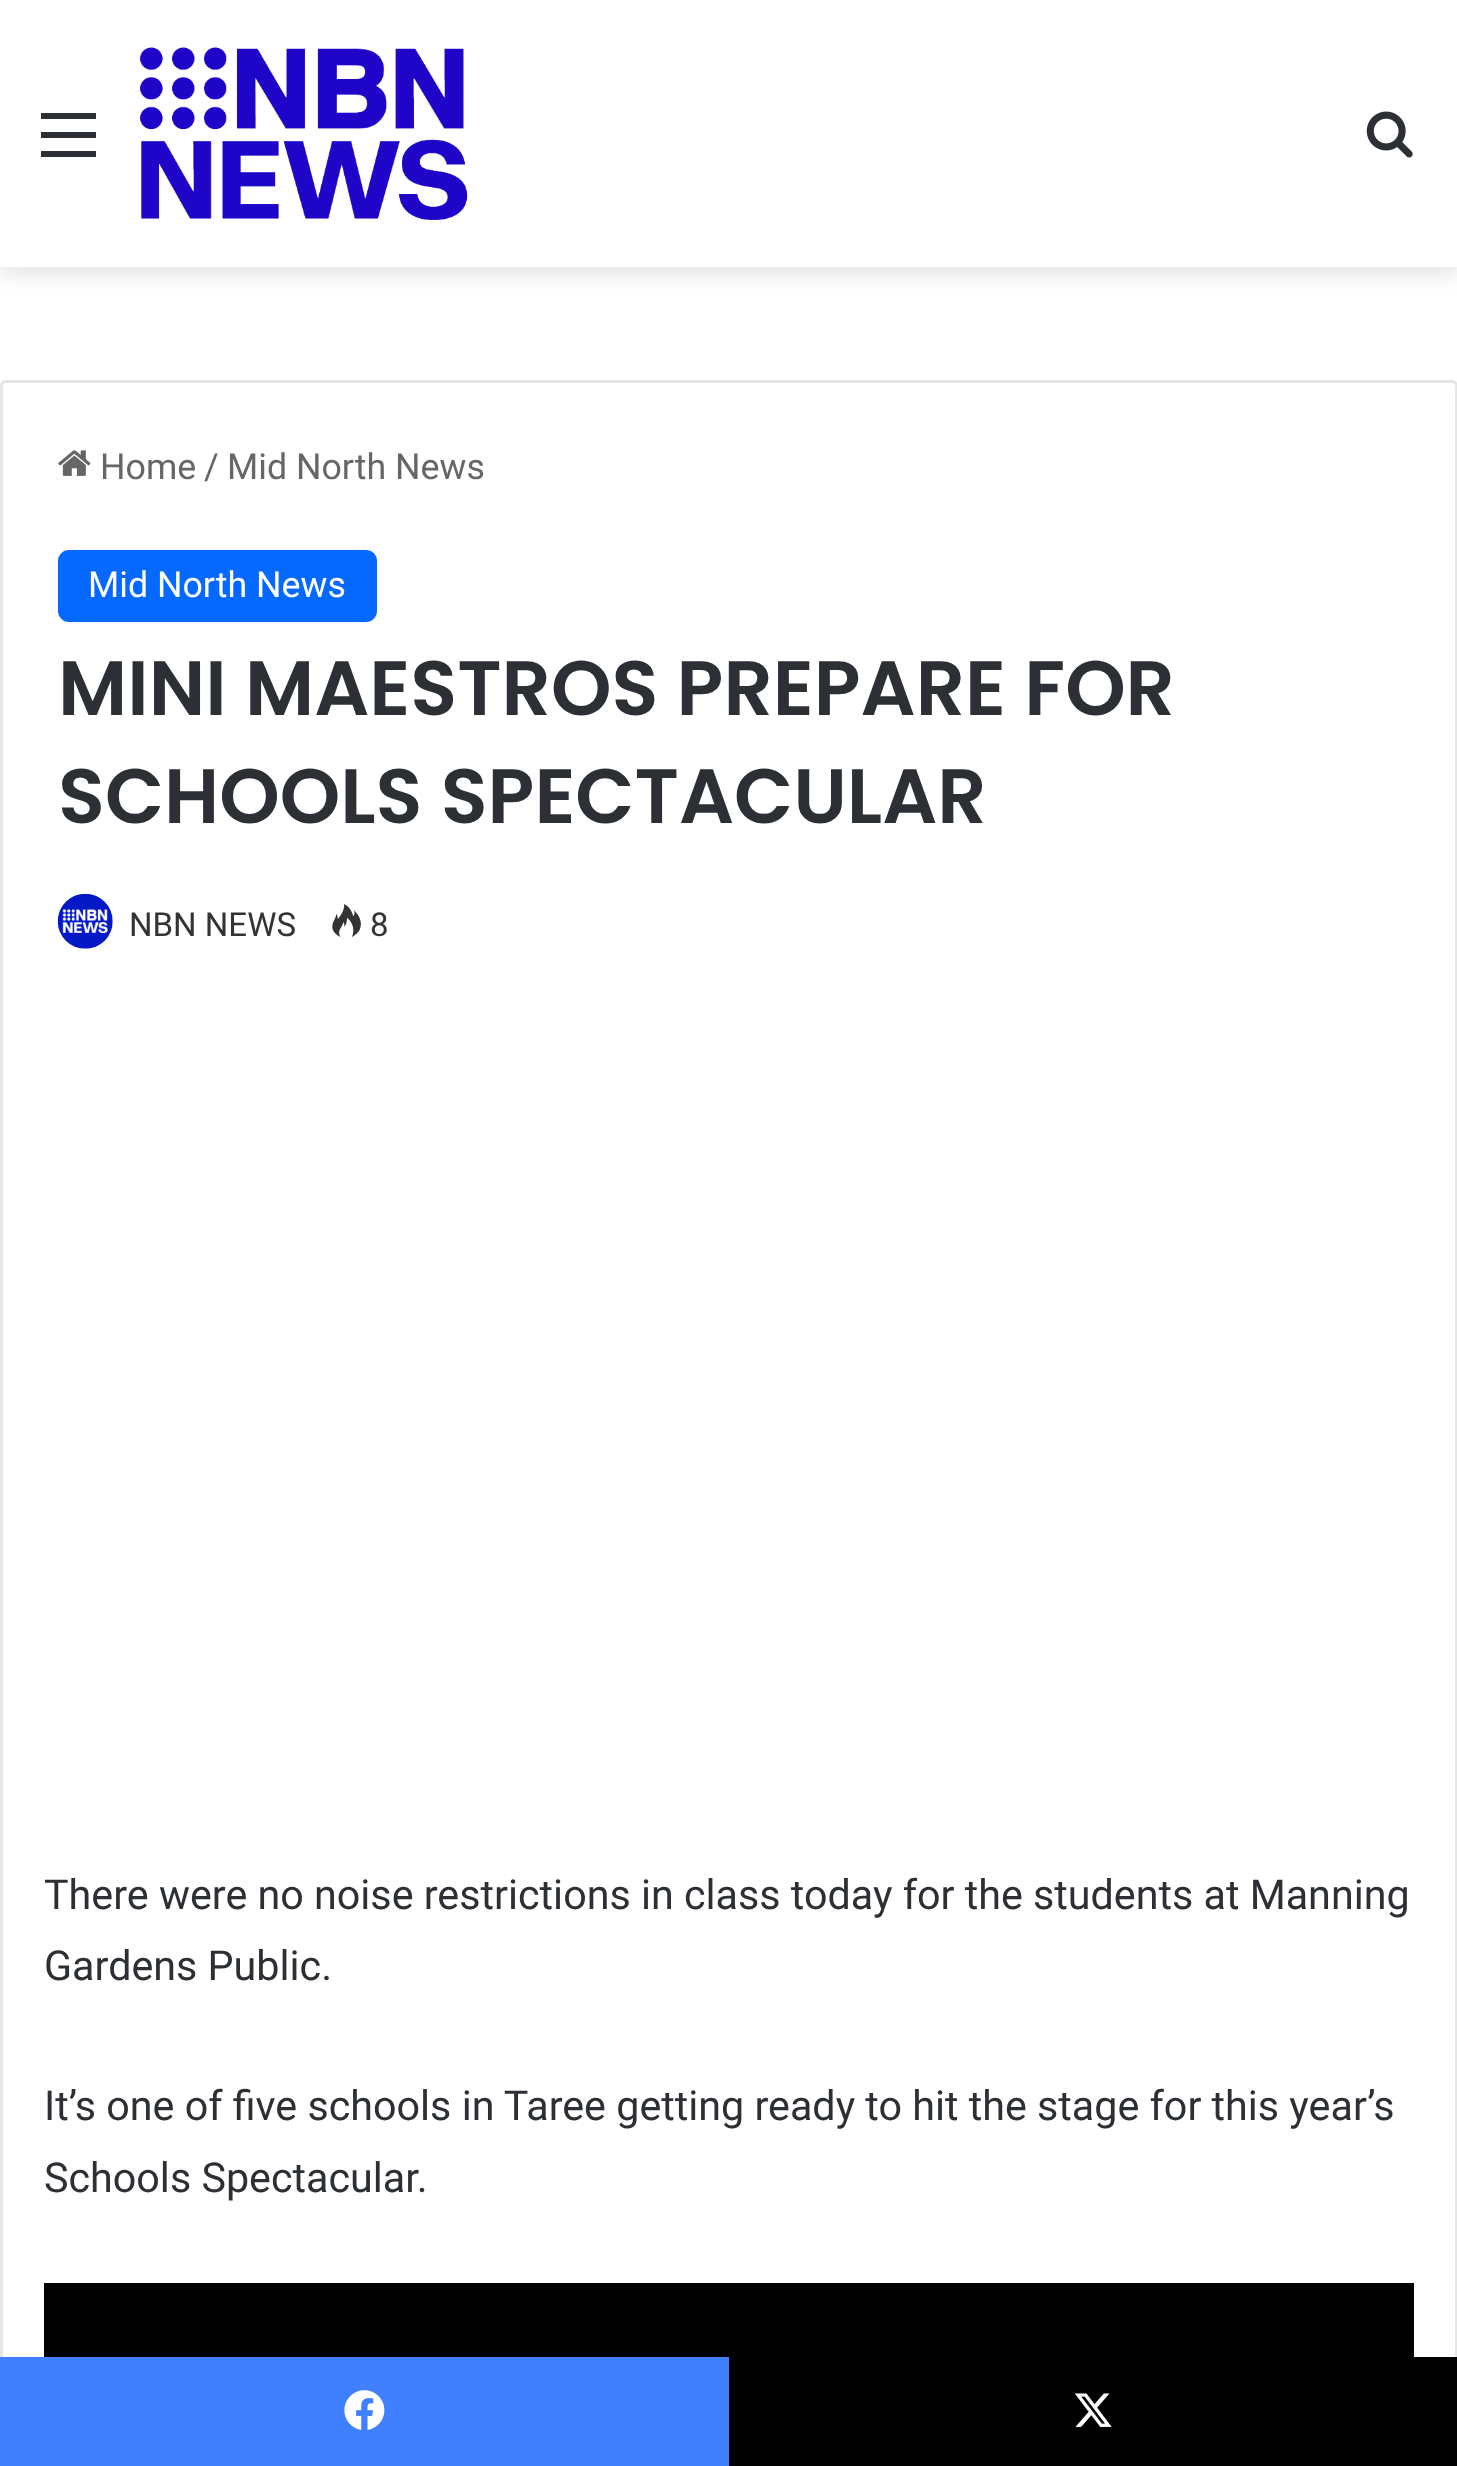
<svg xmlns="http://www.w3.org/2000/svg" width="1457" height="2466">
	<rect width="100%" height="100%" fill="#FFFFFF" />
	<rect x="0" y="8" width="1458" height="267" fill="#000000" fill-opacity="0.1" filter="blur(9.5px)" />
	<rect x="0" y="0" width="1457" height="267" fill="#FFFFFF" />
	<rect x="41" y="132" width="55" height="6" fill="#2C2F34" />
	<rect x="41" y="113" width="55" height="6" fill="#2C2F34" />
	<rect x="41" y="151" width="55" height="6" fill="#2C2F34" />
	<image x="139" y="47" width="329" height="173" href="assets/img1.png" />
	<image x="1366" y="111" width="47" height="47" href="assets/img2.png" />
	<rect x="1.5" y="381.5" width="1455" height="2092" rx="4.5" fill="none" stroke="#E5E5E5" stroke-width="3" />
	<image x="58" y="450" width="33" height="26" href="assets/img3.png" />
	<g font-family="Roboto" font-size="35.75" fill="#666666">
		<text x="100" y="479">Home</text>
		<text x="204" y="479">/</text>
		<text x="227" y="479">Mid North News</text>
	</g>
	<rect x="58" y="550" width="319" height="72" rx="11" fill="#0669FF" />
	<text x="88" y="597" font-family="Roboto" font-size="35.75" fill="#FFFFFF">Mid North News</text>
	<g font-family="Poppins" font-size="77" font-weight="600" fill="#2C2F34">
		<text x="58" y="715">MINI MAESTROS PREPARE FOR</text>
		<text x="58" y="823">SCHOOLS SPECTACULAR</text>
	</g>
	<image x="57" y="893" width="56" height="56" href="assets/img4.png" />
	<text x="129" y="936" font-family="Roboto" font-size="33" fill="#333333">NBN NEWS</text>
	<image x="332" y="904" width="29" height="33" href="assets/img5.png" />
	<text x="370" y="936" font-family="Roboto" font-size="33" fill="#333333">8</text>
	<g font-family="Roboto" font-size="41.25" fill="#2C2F34">
		<text x="44" y="1909">There were no noise restrictions in class today for the students at Manning</text>
		<text x="44" y="1980">Gardens Public.</text>
		<text x="44" y="2120">It’s one of five schools in Taree getting ready to hit the stage for this year’s</text>
		<text x="44" y="2192">Schools Spectacular.</text>
	</g>
	<rect x="44" y="2283" width="1370" height="74" fill="#000000" />
	<rect x="0" y="2357" width="729" height="109" fill="#4080FF" />
	<image x="344" y="2390" width="41" height="40" href="assets/img6.png" />
	<rect x="729" y="2357" width="728" height="109" fill="#000000" />
	<image x="1074" y="2393" width="38" height="34" href="assets/img7.png" />
</svg>
